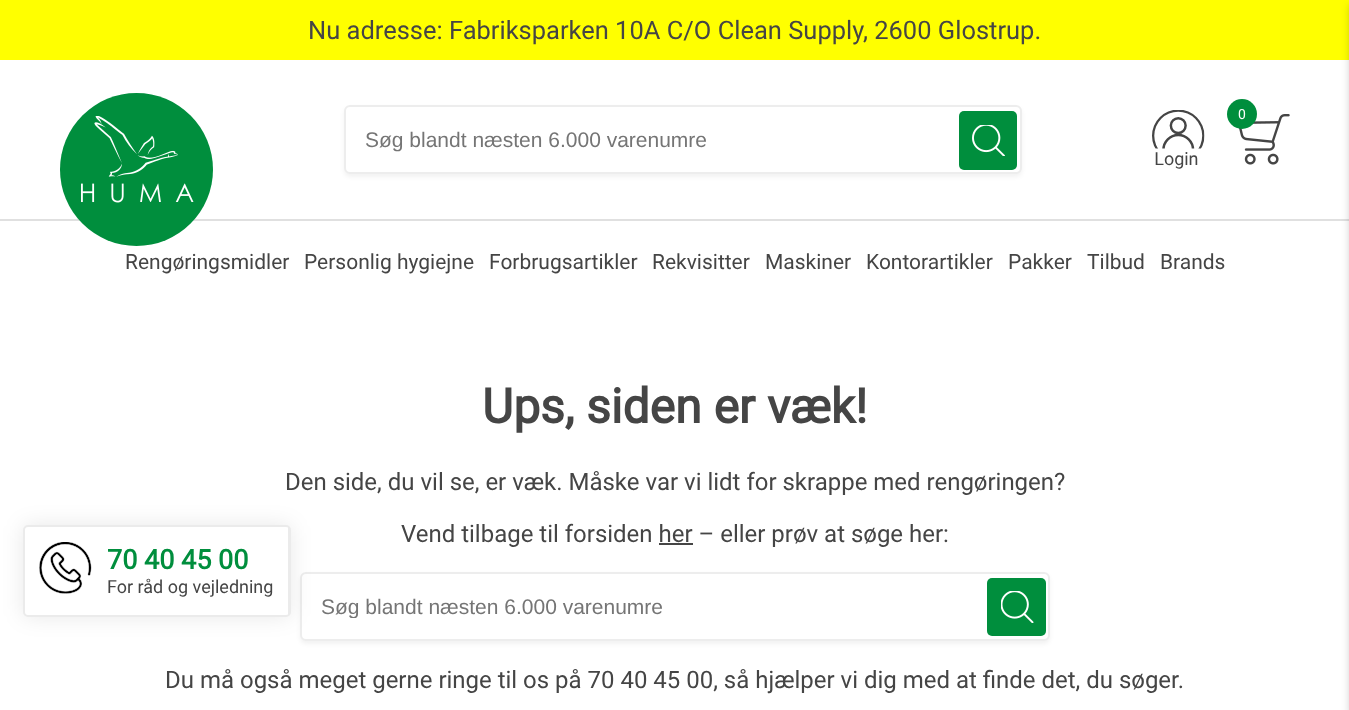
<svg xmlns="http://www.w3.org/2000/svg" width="1349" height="710">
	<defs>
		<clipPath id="clip1"><rect x="321" y="594" width="690" height="24" /></clipPath>
	</defs>
	<rect width="100%" height="100%" fill="#FFFFFF" />
	<rect x="0" y="0" width="1349" height="60" fill="#FFFF00" />
	<text x="308" y="39" font-family="Roboto" font-size="25.5" fill="#454545">Nu adresse: Fabriksparken 10A C/O Clean Supply, 2600 Glostrup.</text>
	<rect x="0" y="219" width="1349" height="2" fill="#E0E0E0" />
	<circle cx="136.5" cy="169.5" r="76.5" fill="#008E3D" />
	<image x="81" y="116" width="113" height="87" href="assets/img1.png" />
	<rect x="344" y="108" width="678" height="69" rx="6" fill="#000000" fill-opacity="0.05" filter="blur(2px)" />
	<rect x="345" y="106" width="676" height="67" rx="5" fill="#FFFFFF" stroke="#EDEDED" stroke-width="2" />
	<text x="365" y="147" font-family="Liberation Sans" font-size="21" fill="#757575">Søg blandt næsten 6.000 varenumre</text>
	<rect x="959" y="111" width="58" height="59" rx="5" fill="#008E3D" />
	<image x="972" y="125" width="33" height="31" href="assets/img2.png" />
	<image x="1152" y="110" width="53" height="59" href="assets/img3.png" />
	<image x="1239" y="114" width="51" height="51" href="assets/img4.png" />
	<circle cx="1242" cy="114" r="15" fill="#008E3D" />
	<text x="1238" y="119" font-family="Roboto" font-size="14" fill="#FFFFFF">0</text>
	<rect x="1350" y="5" width="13" height="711" fill="#000000" fill-opacity="0.21" filter="blur(4.5px)" />
	<g font-family="Roboto" font-size="21" fill="#454545">
		<text x="125" y="269">Rengøringsmidler</text>
		<text x="304" y="269">Personlig hygiejne</text>
		<text x="489" y="269">Forbrugsartikler</text>
		<text x="652" y="269">Rekvisitter</text>
		<text x="765" y="269">Maskiner</text>
		<text x="866" y="269">Kontorartikler</text>
		<text x="1008" y="269">Pakker</text>
		<text x="1087" y="269">Tilbud</text>
		<text x="1160" y="269">Brands</text>
	</g>
	<text x="482" y="423" font-family="Roboto" font-size="48" font-weight="700" fill="#454545">Ups, siden er væk!</text>
	<g font-family="Roboto" font-size="24" fill="#454545">
		<text x="285" y="490">Den side, du vil se, er væk. Måske var vi lidt for skrappe med rengøringen?</text>
		<text x="401" y="542">Vend tilbage til forsiden her – eller prøv at søge her:</text>
	</g>
	<rect x="659" y="543" width="34" height="2" fill="#454545" />
	<rect x="300" y="575" width="750" height="69" rx="6" fill="#000000" fill-opacity="0.05" filter="blur(2px)" />
	<rect x="301" y="573" width="748" height="67" rx="5" fill="#FFFFFF" stroke="#EDEDED" stroke-width="2" />
	<g clip-path="url(#clip1)">
		<text x="321" y="614" font-family="Liberation Sans" font-size="21" fill="#757575">Søg blandt næsten 6.000 varenumre</text>
	</g>
	<rect x="987" y="578" width="59" height="58" rx="5" fill="#008E3D" />
	<image x="1001" y="591" width="33" height="32" href="assets/img5.png" />
	<text x="165" y="688" font-family="Roboto" font-size="24" fill="#454545">Du må også meget gerne ringe til os på 70 40 45 00, så hjælper vi dig med at finde det, du søger.</text>
	<rect x="23" y="525" width="268" height="92" rx="5" fill="#000000" fill-opacity="0.09" filter="blur(10.5px)" />
	<rect x="24" y="526" width="266" height="90" rx="4" fill="#FFFFFF" stroke="#EBEBEB" stroke-width="2" />
	<rect x="288" y="527" width="1" height="88" fill="#EBEBEB" />
	<image x="39" y="542" width="53" height="52" href="assets/img6.png" />
	<text x="107" y="569" font-family="Roboto" font-size="27" font-weight="700" fill="#008E3D">70 40 45 00</text>
	<text x="107" y="593" font-family="Roboto" font-size="18" fill="#454545">For råd og vejledning</text>
</svg>
